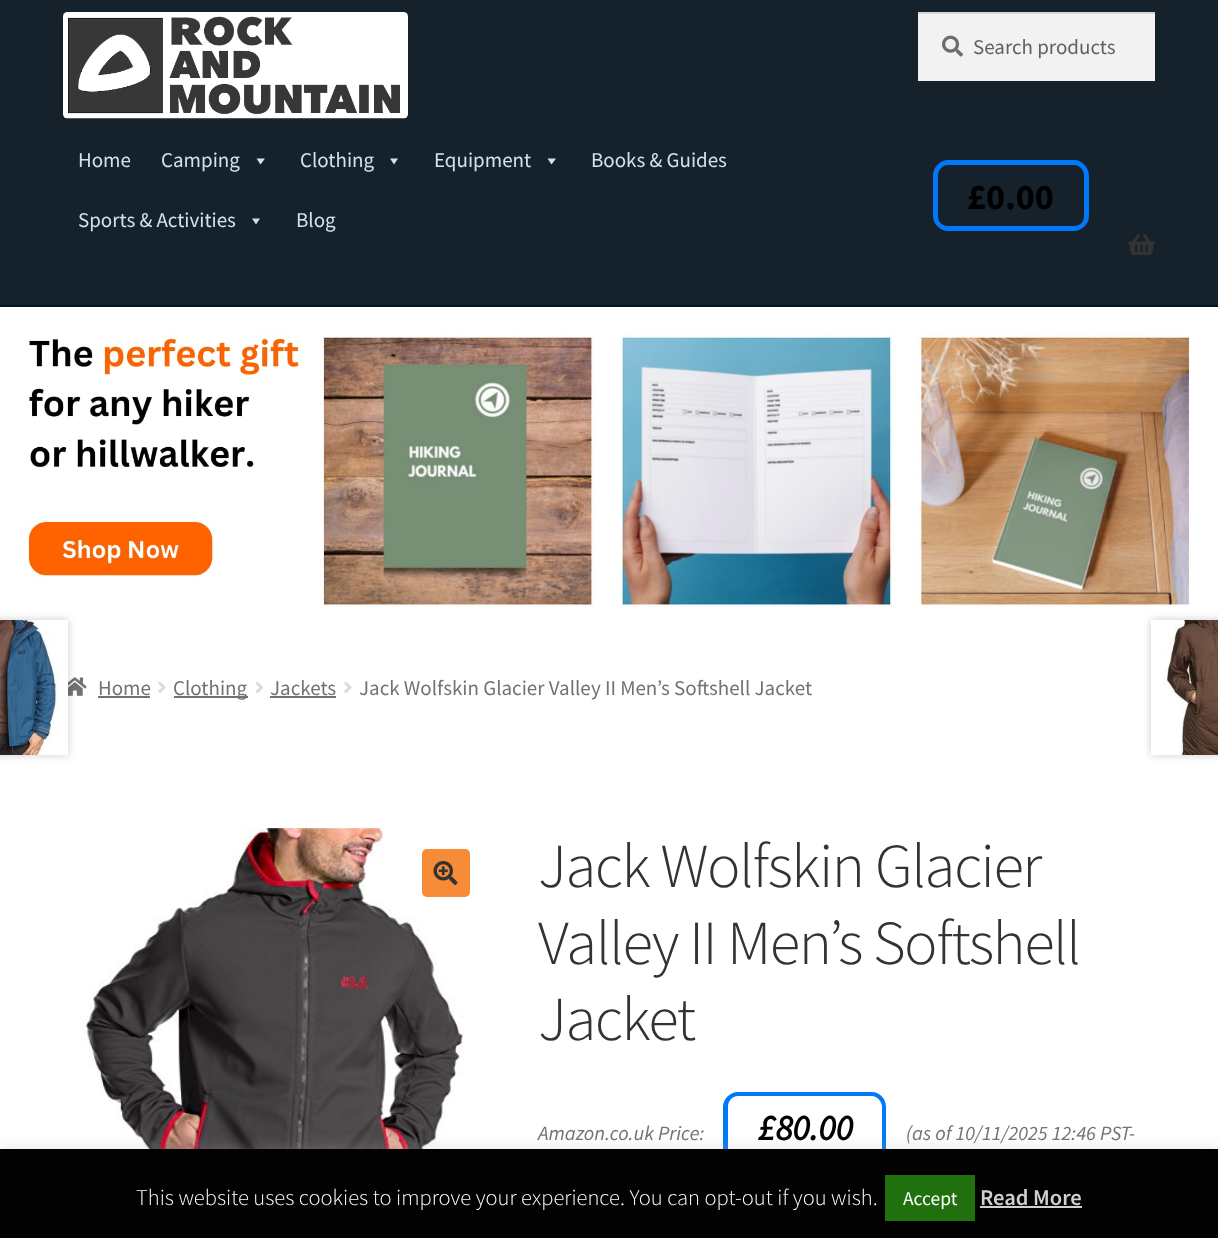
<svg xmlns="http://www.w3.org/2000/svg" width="1218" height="1238">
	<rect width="100%" height="100%" fill="#FFFFFF" />
	<rect x="0" y="0" width="1218" height="305" fill="#15212B" />
	<rect x="0" y="305" width="1218" height="2" fill="#06121C" />
	<image x="63" y="12" width="345" height="107" href="assets/img1.png" />
	<rect x="918" y="14" width="237" height="67" fill="#F2F2F2" />
	<image x="942" y="35" width="21" height="22" href="assets/img2.png" />
	<rect x="918" y="12" width="237" height="2" fill="#D4D4D4" />
	<text x="973" y="54" font-family="Source Sans Pro" font-size="21" fill="#616161">Search products</text>
	<g font-family="Source Sans Pro" font-size="21" fill="#D2E2F0">
		<text x="78" y="167">Home</text>
		<text x="161" y="167">Camping</text>
	</g>
	<path d="M265 158.5L260.5 164.5L256.5 158.5Z" fill="#D2E2F0" />
	<text x="300" y="167" font-family="Source Sans Pro" font-size="21" fill="#D2E2F0">Clothing</text>
	<path d="M398 158.5L394 164.5L390 158.5Z" fill="#D2E2F0" />
	<text x="434" y="167" font-family="Source Sans Pro" font-size="21" fill="#D2E2F0">Equipment</text>
	<path d="M556 158.5L551.5 164.5L547.5 158.5Z" fill="#D2E2F0" />
	<g font-family="Source Sans Pro" font-size="21" fill="#D2E2F0">
		<text x="591" y="167">Books &amp; Guides</text>
		<text x="78" y="227">Sports &amp; Activities</text>
	</g>
	<path d="M260 218.5L256 224.5L252 218.5Z" fill="#D2E2F0" />
	<text x="296" y="227" font-family="Source Sans Pro" font-size="21" fill="#D2E2F0">Blog</text>
	<path d="M948 160H987V231H948C940 231 933 224 933 216V176C933 167 940 160 948 160ZM948 165H987V226H948C942 226 938 222 938 216V176C938 170 942 165 948 165Z" fill="#0078F7" fill-rule="evenodd" />
	<path d="M987 160H1074C1082 160 1089 167 1089 176V216C1089 224 1082 231 1074 231H987ZM987 165H1074C1080 165 1084 170 1084 176V216C1084 222 1080 226 1074 226H987Z" fill="#0078F7" fill-rule="evenodd" />
	<text x="967" y="209" font-family="Source Sans Pro" font-size="36" font-weight="700" fill="#000000">£0.00</text>
	<image x="1128" y="234" width="27" height="21" href="assets/img3.png" />
	<image x="27" y="332" width="1163" height="275" href="assets/img4.png" />
	<image x="68" y="677" width="19" height="19" href="assets/img5.png" />
	<text x="98" y="695" font-family="Source Sans Pro" font-size="21" fill="#727272">Home</text>
	<rect x="98" y="696" width="52" height="2" fill="#727272" />
	<image x="158" y="681" width="8" height="12" href="assets/img6.png" />
	<rect x="174" y="696" width="74" height="2" fill="#727272" />
	<text x="173" y="695" font-family="Source Sans Pro" font-size="21" fill="#727272">Clothing</text>
	<image x="255" y="681" width="8" height="12" href="assets/img7.png" />
	<text x="270" y="695" font-family="Source Sans Pro" font-size="21" fill="#727272">Jackets</text>
	<rect x="270" y="696" width="66" height="2" fill="#727272" />
	<image x="344" y="681" width="8" height="12" href="assets/img6.png" />
	<text x="359" y="695" font-family="Source Sans Pro" font-size="21" fill="#727272">Jack Wolfskin Glacier Valley II Men’s Softshell Jacket</text>
	<rect x="-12" y="620" width="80" height="135" fill="#000000" fill-opacity="0.2" filter="blur(4px)" />
	<rect x="59" y="620" width="9" height="135" fill="#FFFFFF" />
	<image x="0" y="620" width="59" height="135" href="assets/img8.png" />
	<rect x="1151" y="620" width="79" height="135" fill="#000000" fill-opacity="0.2" filter="blur(4px)" />
	<rect x="1151" y="620" width="12" height="135" fill="#FFFFFF" />
	<image x="1163" y="620" width="55" height="135" href="assets/img9.png" />
	<image x="81" y="828" width="383" height="321" href="assets/img10.png" />
	<rect x="422" y="849" width="48" height="48" rx="5" fill="#F78B38" />
	<image x="433" y="861" width="25" height="24" href="assets/img11.png" />
	<g font-family="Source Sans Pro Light" font-size="62.75" font-weight="300" letter-spacing="-1.5" fill="#333333">
		<text x="538" y="887">Jack Wolfskin Glacier</text>
		<text x="538" y="964">Valley II Men’s Softshell</text>
		<text x="538" y="1040">Jacket</text>
	</g>
	<text x="538" y="1140" font-family="Source Sans Pro" font-size="20.4" font-style="italic" fill="#727272">Amazon.co.uk Price:</text>
	<path d="M738 1092H776V1162H738C730 1162 723 1156 723 1148V1107C723 1099 730 1092 738 1092ZM738 1096H776V1158H738C732 1158 728 1153 728 1148V1107C728 1101 732 1096 738 1096Z" fill="#0078F7" fill-rule="evenodd" />
	<path d="M776 1092H872C880 1092 886 1099 886 1107V1148C886 1156 880 1162 872 1162H776ZM776 1096H872C877 1096 882 1101 882 1107V1148C882 1153 877 1158 872 1158H776Z" fill="#0078F7" fill-rule="evenodd" />
	<text x="758" y="1140" font-family="Source Sans Pro" font-size="36" font-weight="700" font-style="italic" fill="#000000">£80.00</text>
	<text x="906" y="1140" font-family="Source Sans Pro" font-size="20.4" font-style="italic" fill="#727272">(as of 10/11/2025 12:46 PST-</text>
	<rect x="0" y="1148" width="1218" height="90" fill="#ACABAB" fill-opacity="0.3" filter="blur(7.5px)" />
	<rect x="0" y="1149" width="1218" height="89" fill="#020202" />
	<text x="136" y="1205" font-family="Source Sans Pro Light" font-size="22.5" font-weight="300" fill="#FFFFFF">This website uses cookies to improve your experience. You can opt-out if you wish.</text>
	<rect x="885" y="1175" width="90" height="46" fill="#20700E" />
	<text x="903" y="1205" font-family="Source Sans Pro" font-size="19.5" fill="#FFFFFF">Accept</text>
	<text x="980" y="1205" font-family="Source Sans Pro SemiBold" font-size="22.5" font-weight="600" fill="#D1D1D1">Read More</text>
	<rect x="980" y="1206" width="102" height="2" fill="#D1D1D1" />
</svg>
